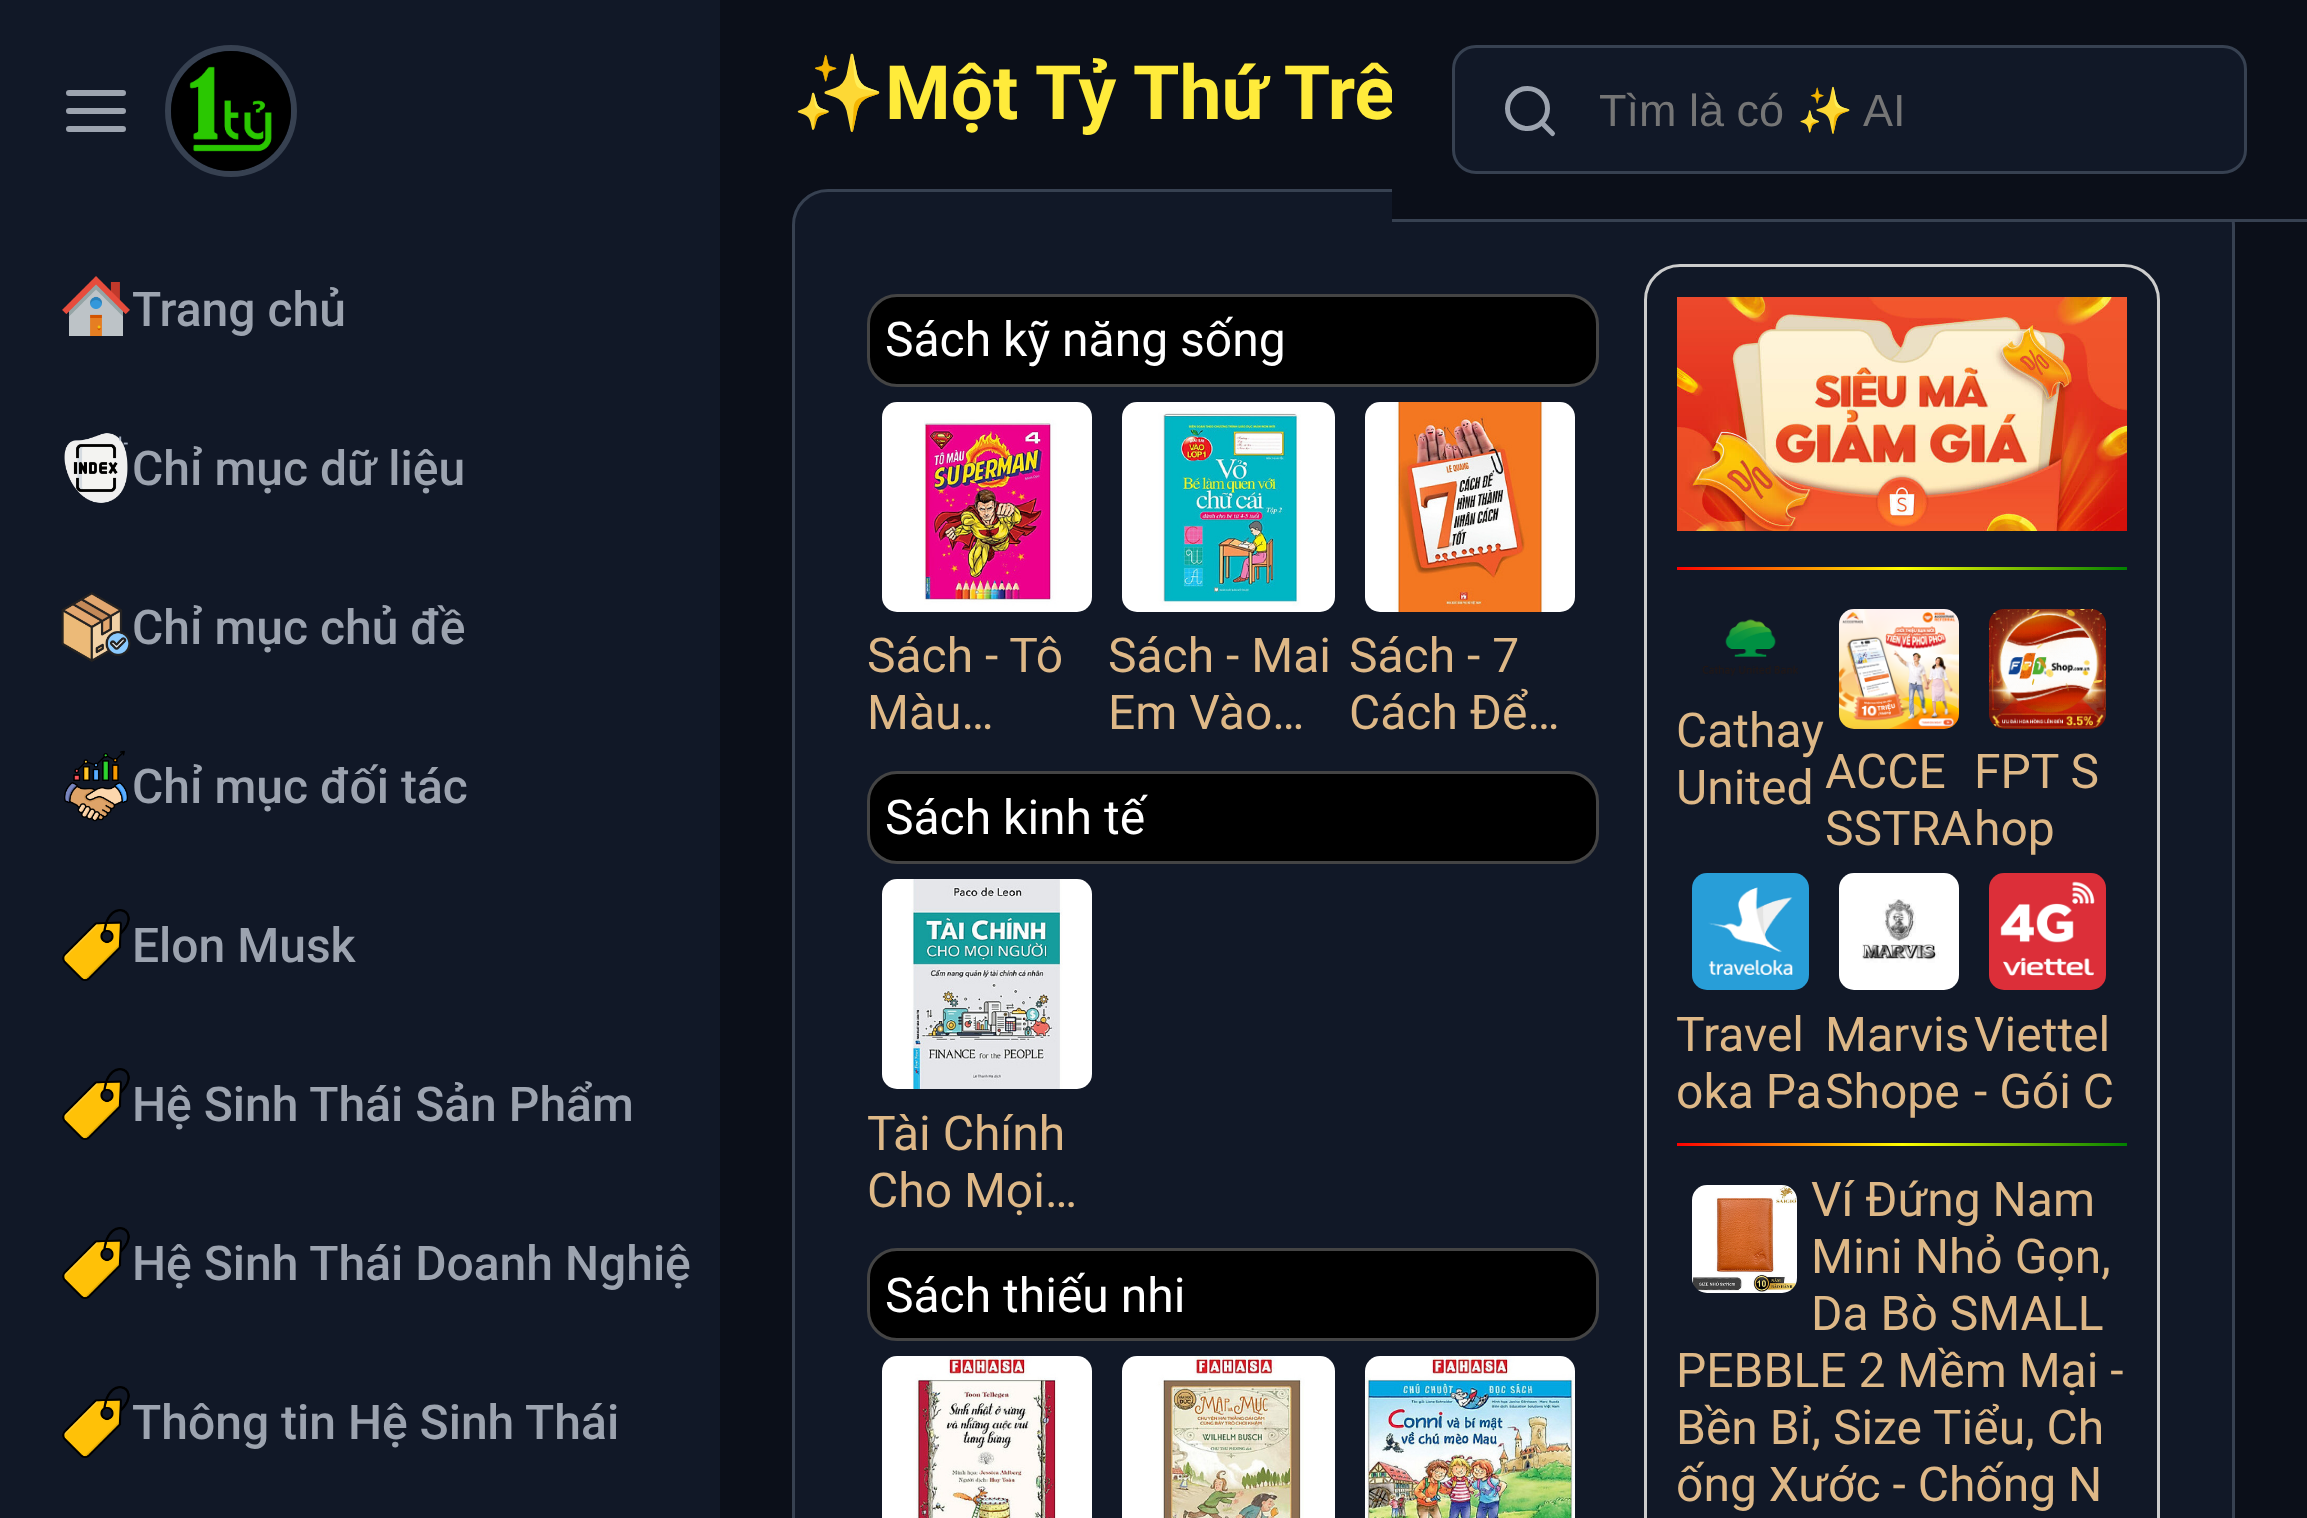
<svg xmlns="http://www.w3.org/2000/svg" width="2307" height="1518">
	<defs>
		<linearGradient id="g1" gradientUnits="userSpaceOnUse" x1="1677" y1="569" x2="2127" y2="569"><stop offset="0" stop-color="#FF0000" /><stop offset="0.5" stop-color="#FFFF00" /><stop offset="1" stop-color="#008000" /></linearGradient>
		<linearGradient id="g2" gradientUnits="userSpaceOnUse" x1="1677" y1="1145" x2="2127" y2="1145"><stop offset="0" stop-color="#FF0000" /><stop offset="0.5" stop-color="#FFFF00" /><stop offset="1" stop-color="#008000" /></linearGradient>
	</defs>
	<rect width="100%" height="100%" fill="#0B0F19" />
	<rect x="0" y="0" width="720" height="1518" fill="#111827" />
	<circle cx="231" cy="111" r="63" fill="none" stroke="#374151" stroke-width="6" />
	<image x="171" y="51" width="120" height="120" href="assets/img1.png" />
	<text x="792" y="119" font-family="Noto Color Emoji" font-size="75" font-weight="700" fill="#FFEB3B">✨</text>
	<text x="885" y="119" font-family="Roboto" font-size="75" font-weight="700" fill="#FFEB3B">Một Tỷ Thứ Trê</text>
	<path d="M828 189H2199C2219 189 2235 205 2235 225V1518H792V225C792 205 808 189 828 189Z" fill="#111827" />
	<rect x="793.5" y="190.5" width="1440" height="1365" rx="34.5" fill="none" stroke="#374151" stroke-width="3" />
	<rect x="868.5" y="295.5" width="729" height="90" rx="28.5" fill="#000000" stroke="#444444" stroke-width="3" />
	<text x="885" y="356" font-family="Roboto" font-size="48" fill="#FFFFFF">Sách kỹ năng sống</text>
	<image x="882" y="402" width="210" height="210" href="assets/img2.png" />
	<g font-family="Roboto" font-size="48" fill="#DEB887">
		<text x="867" y="672">Sách - Tô</text>
		<text x="867" y="729">Màu…</text>
	</g>
	<image x="1122" y="402" width="213" height="210" href="assets/img3.png" />
	<g font-family="Roboto" font-size="48" fill="#DEB887">
		<text x="1108" y="672">Sách - Mai</text>
		<text x="1108" y="729">Em Vào…</text>
	</g>
	<image x="1365" y="402" width="210" height="210" href="assets/img4.png" />
	<g font-family="Roboto" font-size="48" fill="#DEB887">
		<text x="1349" y="672">Sách - 7</text>
		<text x="1349" y="729">Cách Để…</text>
	</g>
	<rect x="868.5" y="772.5" width="729" height="90" rx="28.5" fill="#000000" stroke="#444444" stroke-width="3" />
	<text x="885" y="834" font-family="Roboto" font-size="48" fill="#FFFFFF">Sách kinh tế</text>
	<image x="882" y="879" width="210" height="210" href="assets/img5.png" />
	<g font-family="Roboto" font-size="48" fill="#DEB887">
		<text x="867" y="1150">Tài Chính</text>
		<text x="867" y="1207">Cho Mọi…</text>
	</g>
	<rect x="868.5" y="1249.5" width="729" height="90" rx="28.5" fill="#000000" stroke="#444444" stroke-width="3" />
	<text x="885" y="1312" font-family="Roboto" font-size="48" fill="#FFFFFF">Sách thiếu nhi</text>
	<image x="882" y="1356" width="210" height="162" href="assets/img6.png" />
	<image x="1122" y="1356" width="213" height="162" href="assets/img7.png" />
	<image x="1365" y="1356" width="210" height="162" href="assets/img8.png" />
	<rect x="1645.5" y="265.5" width="513" height="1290" rx="34.5" fill="none" stroke="#CCCCCC" stroke-width="3" />
	<image x="1677" y="297" width="450" height="234" href="assets/img9.png" />
	<rect x="1677" y="567" width="450" height="3" fill="url(#g1)" />
	<image x="1702" y="619" width="96" height="57" href="assets/img10.png" />
	<g font-family="Roboto" font-size="48" fill="#DEB887">
		<text x="1676" y="747">Cathay</text>
		<text x="1676" y="804">United</text>
	</g>
	<image x="1839" y="609" width="120" height="120" href="assets/img11.png" />
	<g font-family="Roboto" font-size="48" fill="#DEB887">
		<text x="1825" y="788">ACCE</text>
		<text x="1825" y="845">SSTRA</text>
	</g>
	<image x="1989" y="609" width="117" height="120" href="assets/img12.png" />
	<g font-family="Roboto" font-size="48" fill="#DEB887">
		<text x="1974" y="788">FPT S</text>
		<text x="1974" y="845">hop</text>
	</g>
	<image x="1692" y="873" width="117" height="117" href="assets/img13.png" />
	<g font-family="Roboto" font-size="48" fill="#DEB887">
		<text x="1676" y="1051">Travel</text>
		<text x="1676" y="1108">oka Pa</text>
	</g>
	<image x="1839" y="873" width="120" height="117" href="assets/img14.png" />
	<g font-family="Roboto" font-size="48" fill="#DEB887">
		<text x="1825" y="1051">Marvis</text>
		<text x="1825" y="1108">Shope</text>
	</g>
	<image x="1989" y="873" width="117" height="117" href="assets/img15.png" />
	<g font-family="Roboto" font-size="48" fill="#DEB887">
		<text x="1974" y="1051">Viettel</text>
		<text x="1974" y="1108">- Gói C</text>
	</g>
	<rect x="1677" y="1143" width="450" height="3" fill="url(#g2)" />
	<image x="1692" y="1185" width="105" height="108" href="assets/img16.png" />
	<g font-family="Roboto" font-size="48" fill="#DEB887">
		<text x="1811" y="1216">Ví Đứng Nam</text>
		<text x="1811" y="1273">Mini Nhỏ Gọn,</text>
		<text x="1811" y="1330">Da Bò SMALL</text>
		<text x="1676" y="1387">PEBBLE 2 Mềm Mại -</text>
		<text x="1676" y="1444">Bền Bỉ, Size Tiểu, Ch</text>
		<text x="1676" y="1501">ống Xước - Chống N</text>
	</g>
	<rect x="1392" y="89" width="843" height="130" fill="#0B0F19" />
	<rect x="1392" y="219" width="915" height="3" fill="#374151" />
	<rect x="1453.5" y="46.5" width="792" height="126" rx="22.5" fill="#111827" stroke="#374151" stroke-width="3" />
	<circle cx="1527.5" cy="108.5" r="20" fill="none" stroke="#9CA3AF" stroke-width="5" />
	<path d="M1552.5 133.5L1541.5 122.5" fill="none" stroke="#9CA3AF" stroke-width="5" stroke-linecap="round" stroke-linejoin="round" />
	<text x="1599" y="126" font-family="Liberation Sans" font-size="45" fill="#757575">Tìm là có</text>
	<text x="1797" y="126" font-family="Noto Color Emoji" font-size="45" fill="#757575">✨</text>
	<text x="1863" y="126" font-family="Liberation Sans" font-size="45" fill="#757575">AI</text>
	<path d="M69 111H123M69 93H123M69 129H123" fill="none" stroke="#9CA3AF" stroke-width="6" stroke-linecap="round" stroke-linejoin="round" />
	<image x="62" y="276" width="68" height="60" href="assets/img17.png" />
	<text x="132" y="326" font-family="Roboto" font-size="48" font-weight="500" fill="#9CA3AF">Trang chủ</text>
	<image x="64" y="433" width="64" height="70" href="assets/img18.png" />
	<text x="132" y="485" font-family="Roboto" font-size="48" font-weight="500" fill="#9CA3AF">Chỉ mục dữ liệu</text>
	<image x="61" y="592" width="70" height="70" href="assets/img19.png" />
	<text x="132" y="644" font-family="Roboto" font-size="48" font-weight="500" fill="#9CA3AF">Chỉ mục chủ đề</text>
	<image x="64" y="750" width="64" height="72" href="assets/img20.png" />
	<text x="132" y="803" font-family="Roboto" font-size="48" font-weight="500" fill="#9CA3AF">Chỉ mục đối tác</text>
	<image x="62" y="909" width="68" height="72" href="assets/img21.png" />
	<text x="132" y="962" font-family="Roboto" font-size="48" font-weight="500" fill="#9CA3AF">Elon Musk</text>
	<image x="62" y="1068" width="68" height="72" href="assets/img21.png" />
	<text x="132" y="1121" font-family="Roboto" font-size="48" font-weight="500" fill="#9CA3AF">Hệ Sinh Thái Sản Phẩm</text>
	<image x="62" y="1227" width="68" height="72" href="assets/img21.png" />
	<text x="132" y="1280" font-family="Roboto" font-size="48" font-weight="500" fill="#9CA3AF">Hệ Sinh Thái Doanh Nghiệ</text>
	<image x="62" y="1386" width="68" height="72" href="assets/img21.png" />
	<text x="132" y="1439" font-family="Roboto" font-size="48" font-weight="500" fill="#9CA3AF">Thông tin Hệ Sinh Thái</text>
</svg>
